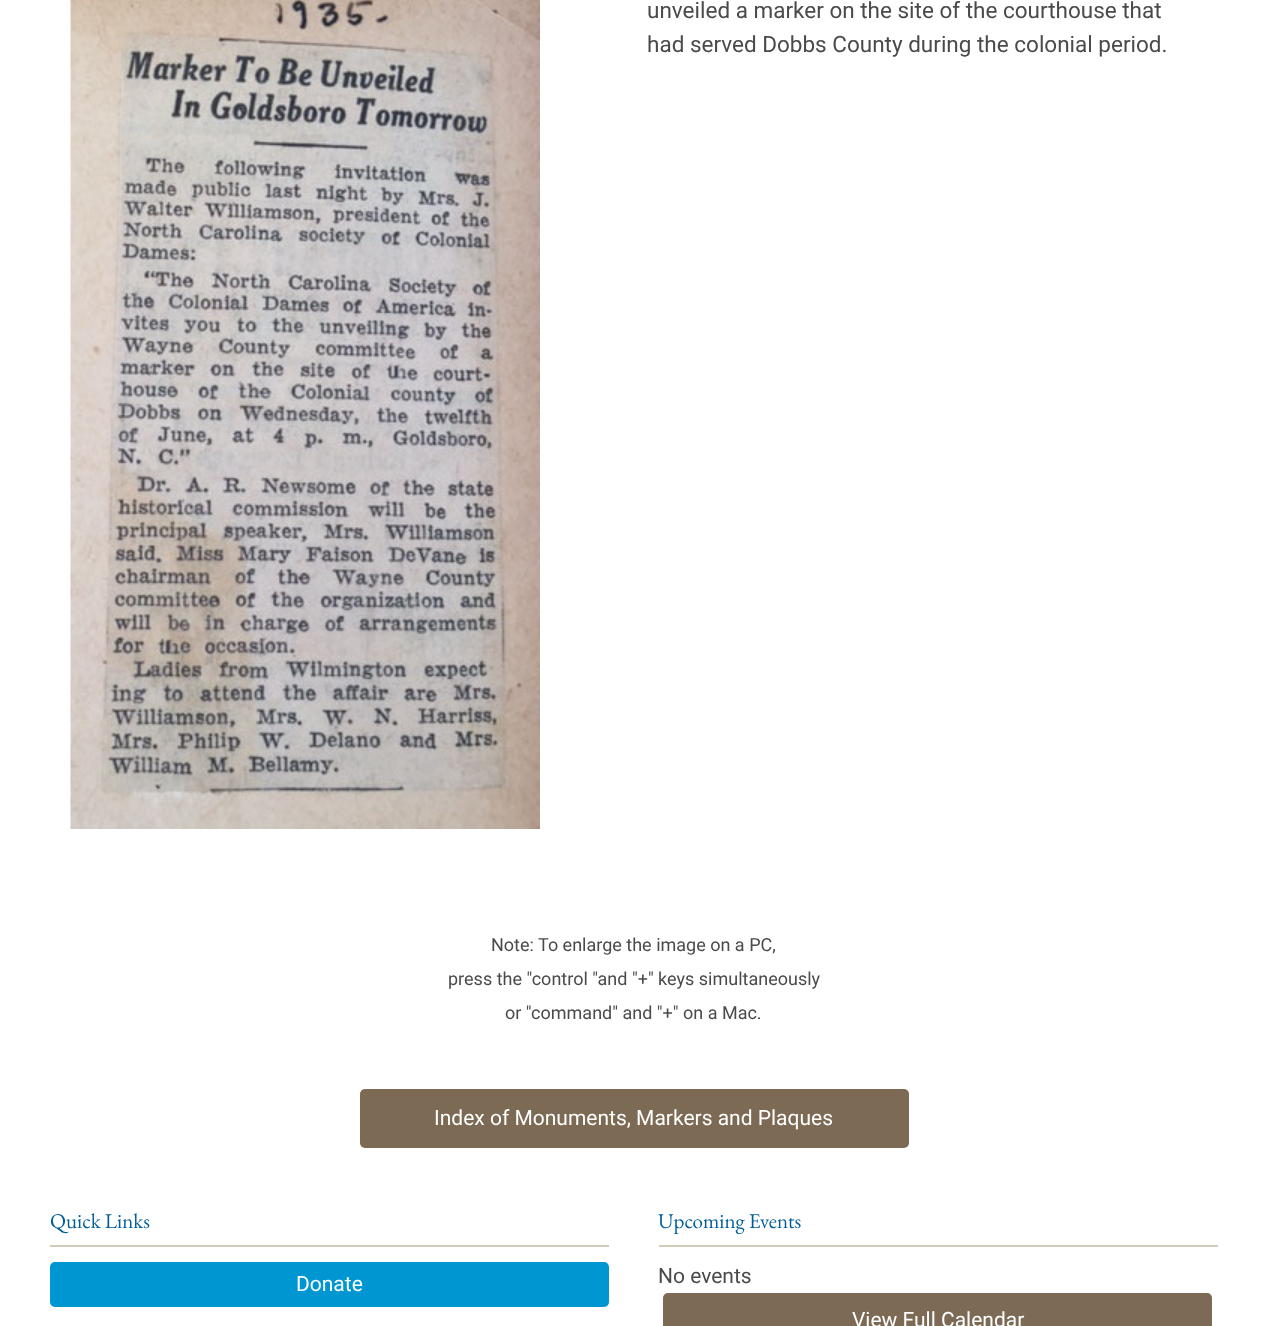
<svg xmlns="http://www.w3.org/2000/svg" width="1267" height="1326">
	<rect width="100%" height="100%" fill="#FFFFFF" />
	<image x="70" y="0" width="470" height="829" href="assets/img1.png" />
	<g font-family="Roboto" font-size="22.5" fill="#4A4A4A">
		<text x="647" y="18">unveiled a marker on the site of the courthouse that</text>
		<text x="647" y="52">had served Dobbs County during the colonial period.</text>
	</g>
	<g font-family="Roboto" font-size="18" fill="#4A4A4A">
		<text x="491" y="951">Note: To enlarge the image on a PC,</text>
		<text x="448" y="985">press the "control "and "+" keys simultaneously</text>
		<text x="505" y="1019">or "command" and "+" on a Mac.</text>
	</g>
	<rect x="360" y="1089" width="549" height="59" rx="5" fill="#7C6A55" />
	<text x="434" y="1125" font-family="Roboto" font-size="21" fill="#FFFFFF">Index of Monuments, Markers and Plaques</text>
	<rect x="50" y="1245" width="559" height="2" fill="#D3CAB7" />
	<text x="50" y="1228" font-family="EB Garamond" font-size="21" fill="#005E9A">Quick Links</text>
	<rect x="50" y="1262" width="559" height="45" rx="5" fill="#0096D1" />
	<text x="296" y="1291" font-family="Roboto" font-size="21" fill="#FFFFFF">Donate</text>
	<rect x="659" y="1245" width="559" height="2" fill="#D3CAB7" />
	<text x="658" y="1228" font-family="EB Garamond" font-size="21" fill="#005E9A">Upcoming Events</text>
	<text x="658" y="1283" font-family="Roboto" font-size="21" fill="#4A4A4A">No events</text>
	<rect x="663" y="1293" width="549" height="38" rx="5" fill="#7C6A55" />
	<text x="852" y="1327" font-family="Roboto" font-size="21" fill="#FFFFFF">View Full Calendar</text>
</svg>
